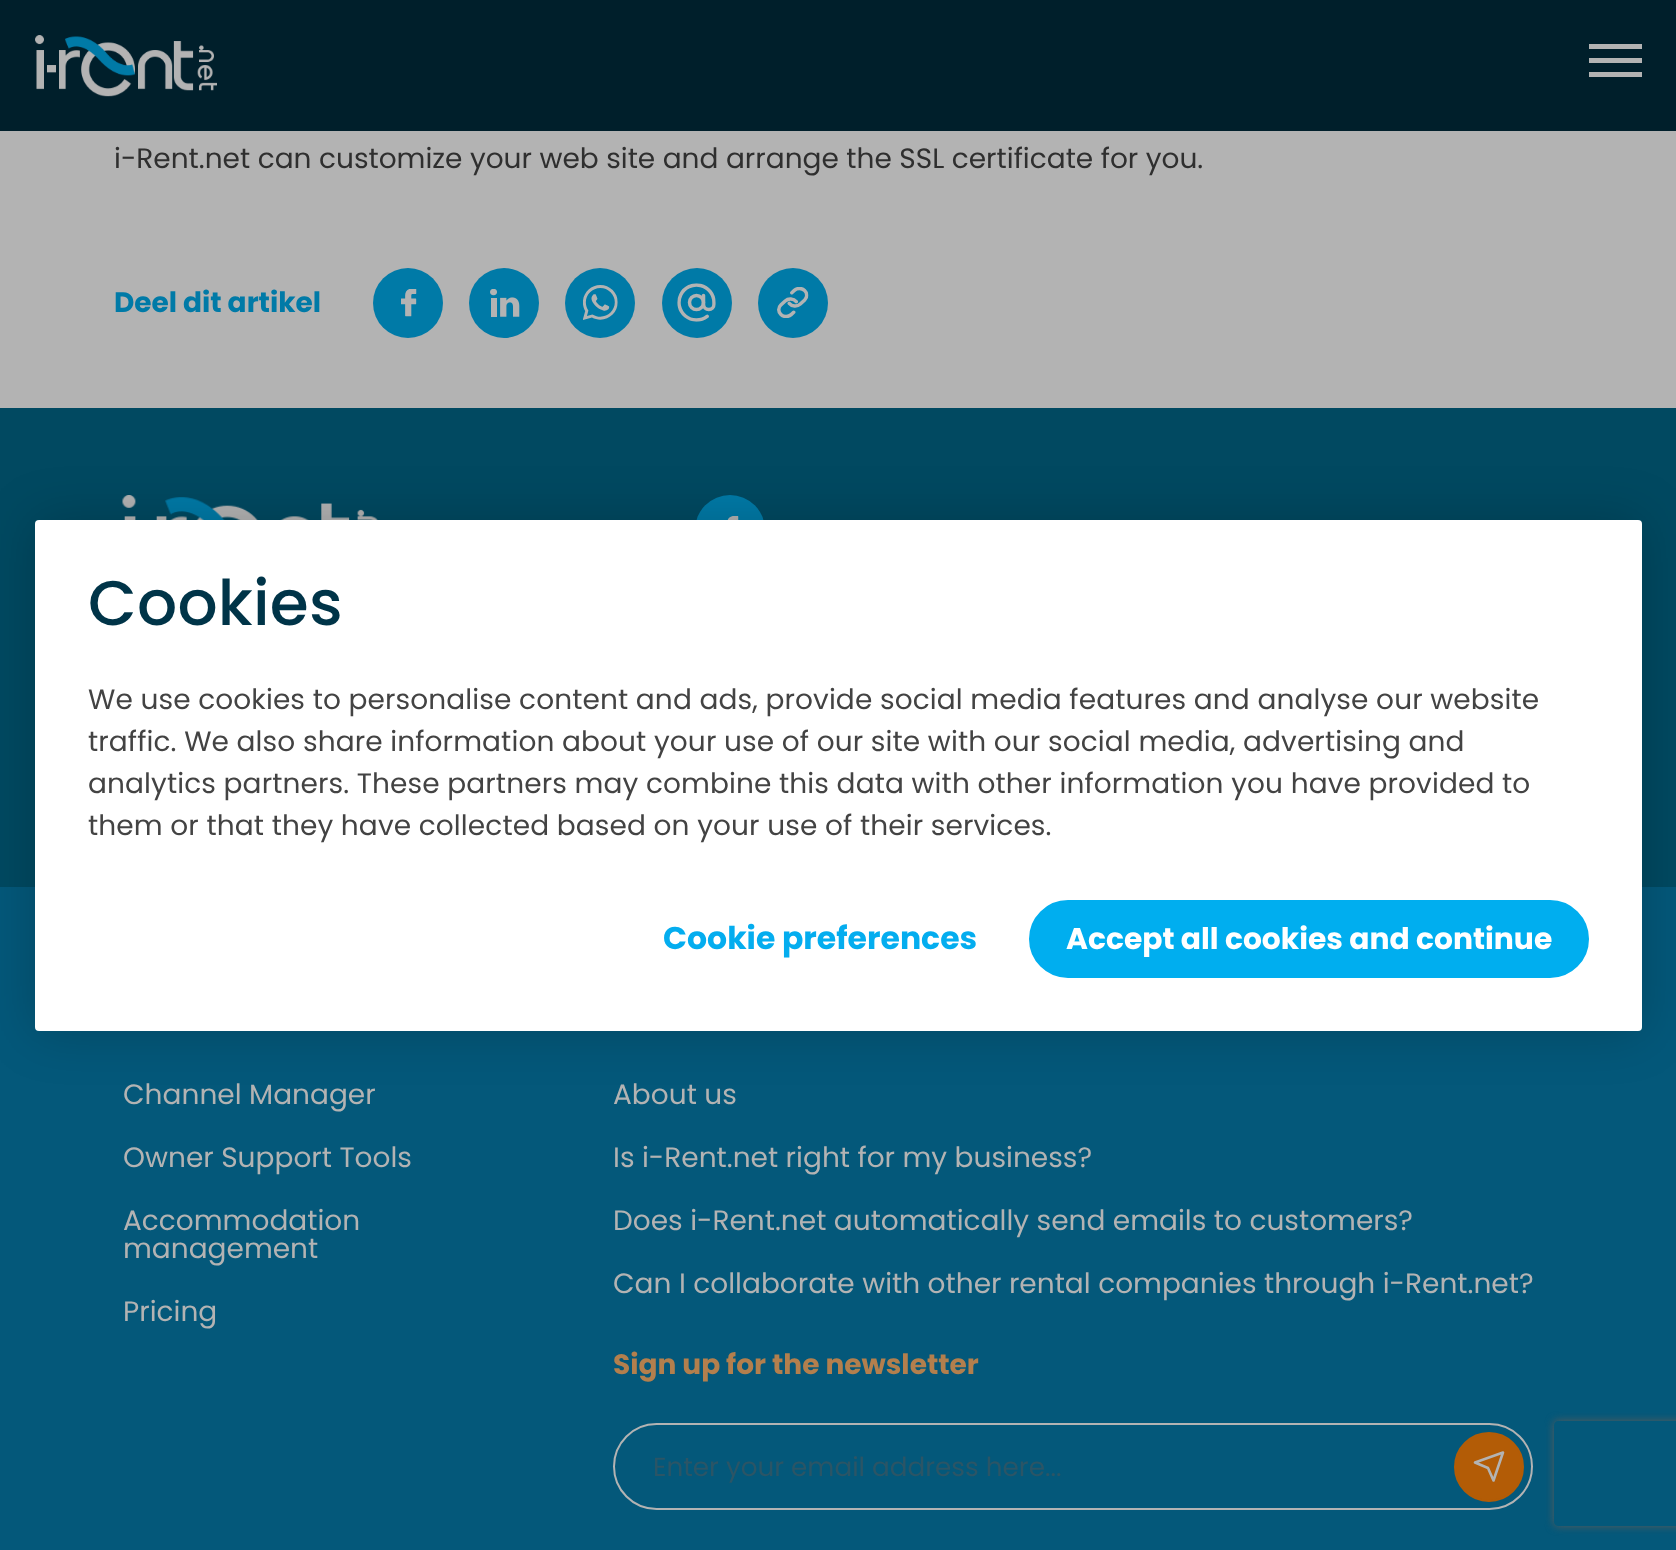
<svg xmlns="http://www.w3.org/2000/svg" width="1676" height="1550">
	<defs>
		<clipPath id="clip1"><path d="M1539 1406H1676V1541H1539ZM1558 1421H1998C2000 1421 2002 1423 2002 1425V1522C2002 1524 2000 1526 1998 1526H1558C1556 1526 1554 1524 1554 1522V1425C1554 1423 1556 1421 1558 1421Z" clip-rule="evenodd" /></clipPath>
	</defs>
	<rect width="100%" height="100%" fill="#B3B3B3" />
	<rect x="0" y="0" width="1676" height="131" fill="#001F2B" />
	<image x="35" y="35" width="182" height="62" href="assets/img1.png" />
	<rect x="1589" y="44" width="53" height="5" fill="#B3B3B3" />
	<rect x="1589" y="58" width="53" height="5" fill="#B3B3B3" />
	<rect x="1589" y="72" width="53" height="5" fill="#B3B3B3" />
	<text x="114" y="168" font-family="Poppins" font-size="28" fill="#2F2F2F">i-Rent.net can customize your web site and arrange the SSL certificate for you.</text>
	<text x="114" y="312" font-family="Poppins" font-size="28" font-weight="700" fill="#007AA7">Deel dit artikel</text>
	<circle cx="408" cy="303" r="35" fill="#007AA7" />
	<image x="401" y="289" width="16" height="28" href="assets/img2.png" />
	<circle cx="504" cy="303" r="35" fill="#007AA7" />
	<image x="490" y="289" width="30" height="28" href="assets/img3.png" />
	<circle cx="600" cy="303" r="35" fill="#007AA7" />
	<image x="583" y="285" width="35" height="35" href="assets/img4.png" />
	<circle cx="697" cy="303" r="35" fill="#007AA7" />
	<image x="677" y="283" width="39" height="39" href="assets/img5.png" />
	<circle cx="793" cy="303" r="35" fill="#007AA7" />
	<image x="777" y="287" width="32" height="31" href="assets/img6.png" />
	<rect x="0" y="887" width="1676" height="663" fill="#04587A" />
	<rect x="0" y="408" width="1676" height="479" fill="#014961" />
	<image x="122" y="495" width="256" height="25" href="assets/img7.png" />
	<circle cx="730" cy="530" r="35" fill="#007AA7" />
	<image x="727" y="516" width="12" height="4" href="assets/img8.png" />
	<rect x="35" y="520" width="1607" height="511" rx="4" fill="#000000" fill-opacity="0.2" filter="blur(26px)" />
	<rect x="35" y="520" width="1607" height="511" rx="4" fill="#FFFFFF" />
	<text x="88" y="625" font-family="Poppins" font-size="63" font-weight="500" letter-spacing="0.25" fill="#003448">Cookies</text>
	<g font-family="Poppins" font-size="28" letter-spacing="0.1" fill="#434343">
		<text x="88" y="709">We use cookies to personalise content and ads, provide social media features and analyse our website</text>
		<text x="88" y="751">traffic. We also share information about your use of our site with our social media, advertising and</text>
		<text x="88" y="793">analytics partners. These partners may combine this data with other information you have provided to</text>
		<text x="88" y="835">them or that they have collected based on your use of their services.</text>
	</g>
	<text x="663" y="949" font-family="Poppins" font-size="31.5" font-weight="700" fill="#04ADEF">Cookie preferences</text>
	<rect x="1030" y="901" width="558" height="76" rx="38" fill="#00AEEF" stroke="#00AEEF" stroke-width="2" />
	<text x="1066" y="949" font-family="Poppins" font-size="29.75" font-weight="700" fill="#FFFFFF">Accept all cookies and continue</text>
	<g font-family="Poppins" font-size="28" fill="#B3B3B3">
		<text x="123" y="1104">Channel Manager</text>
		<text x="123" y="1167">Owner Support Tools</text>
		<text x="123" y="1230">Accommodation</text>
		<text x="123" y="1258">management</text>
		<text x="123" y="1321">Pricing</text>
		<text x="613" y="1104">About us</text>
		<text x="613" y="1167">Is i-Rent.net right for my business?</text>
		<text x="613" y="1230">Does i-Rent.net automatically send emails to customers?</text>
		<text x="613" y="1293">Can I collaborate with other rental companies through i-Rent.net?</text>
	</g>
	<text x="613" y="1374" font-family="Poppins" font-size="28" font-weight="700" fill="#B37F4D">Sign up for the newsletter</text>
	<rect x="614" y="1424" width="918" height="85" rx="42.5" fill="none" stroke="#B3B3B3" stroke-width="2" />
	<text x="653" y="1476" font-family="Poppins" font-size="26.25" fill="#2B5566">Enter your email address here...</text>
	<circle cx="1489" cy="1467" r="34" fill="#B35C06" stroke="#B35C06" stroke-width="2" />
	<path d="M1503 1452.5L1493.5 1480.5L1488 1468L1475 1462.5Z" fill="none" stroke="#B3B3B3" stroke-width="2.6" stroke-linecap="round" stroke-linejoin="round" />
	<g clip-path="url(#clip1)">
		<rect x="1554" y="1421" width="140" height="105" rx="4" fill="#5A5A5A" filter="blur(4.5px)" />
	</g>
</svg>
